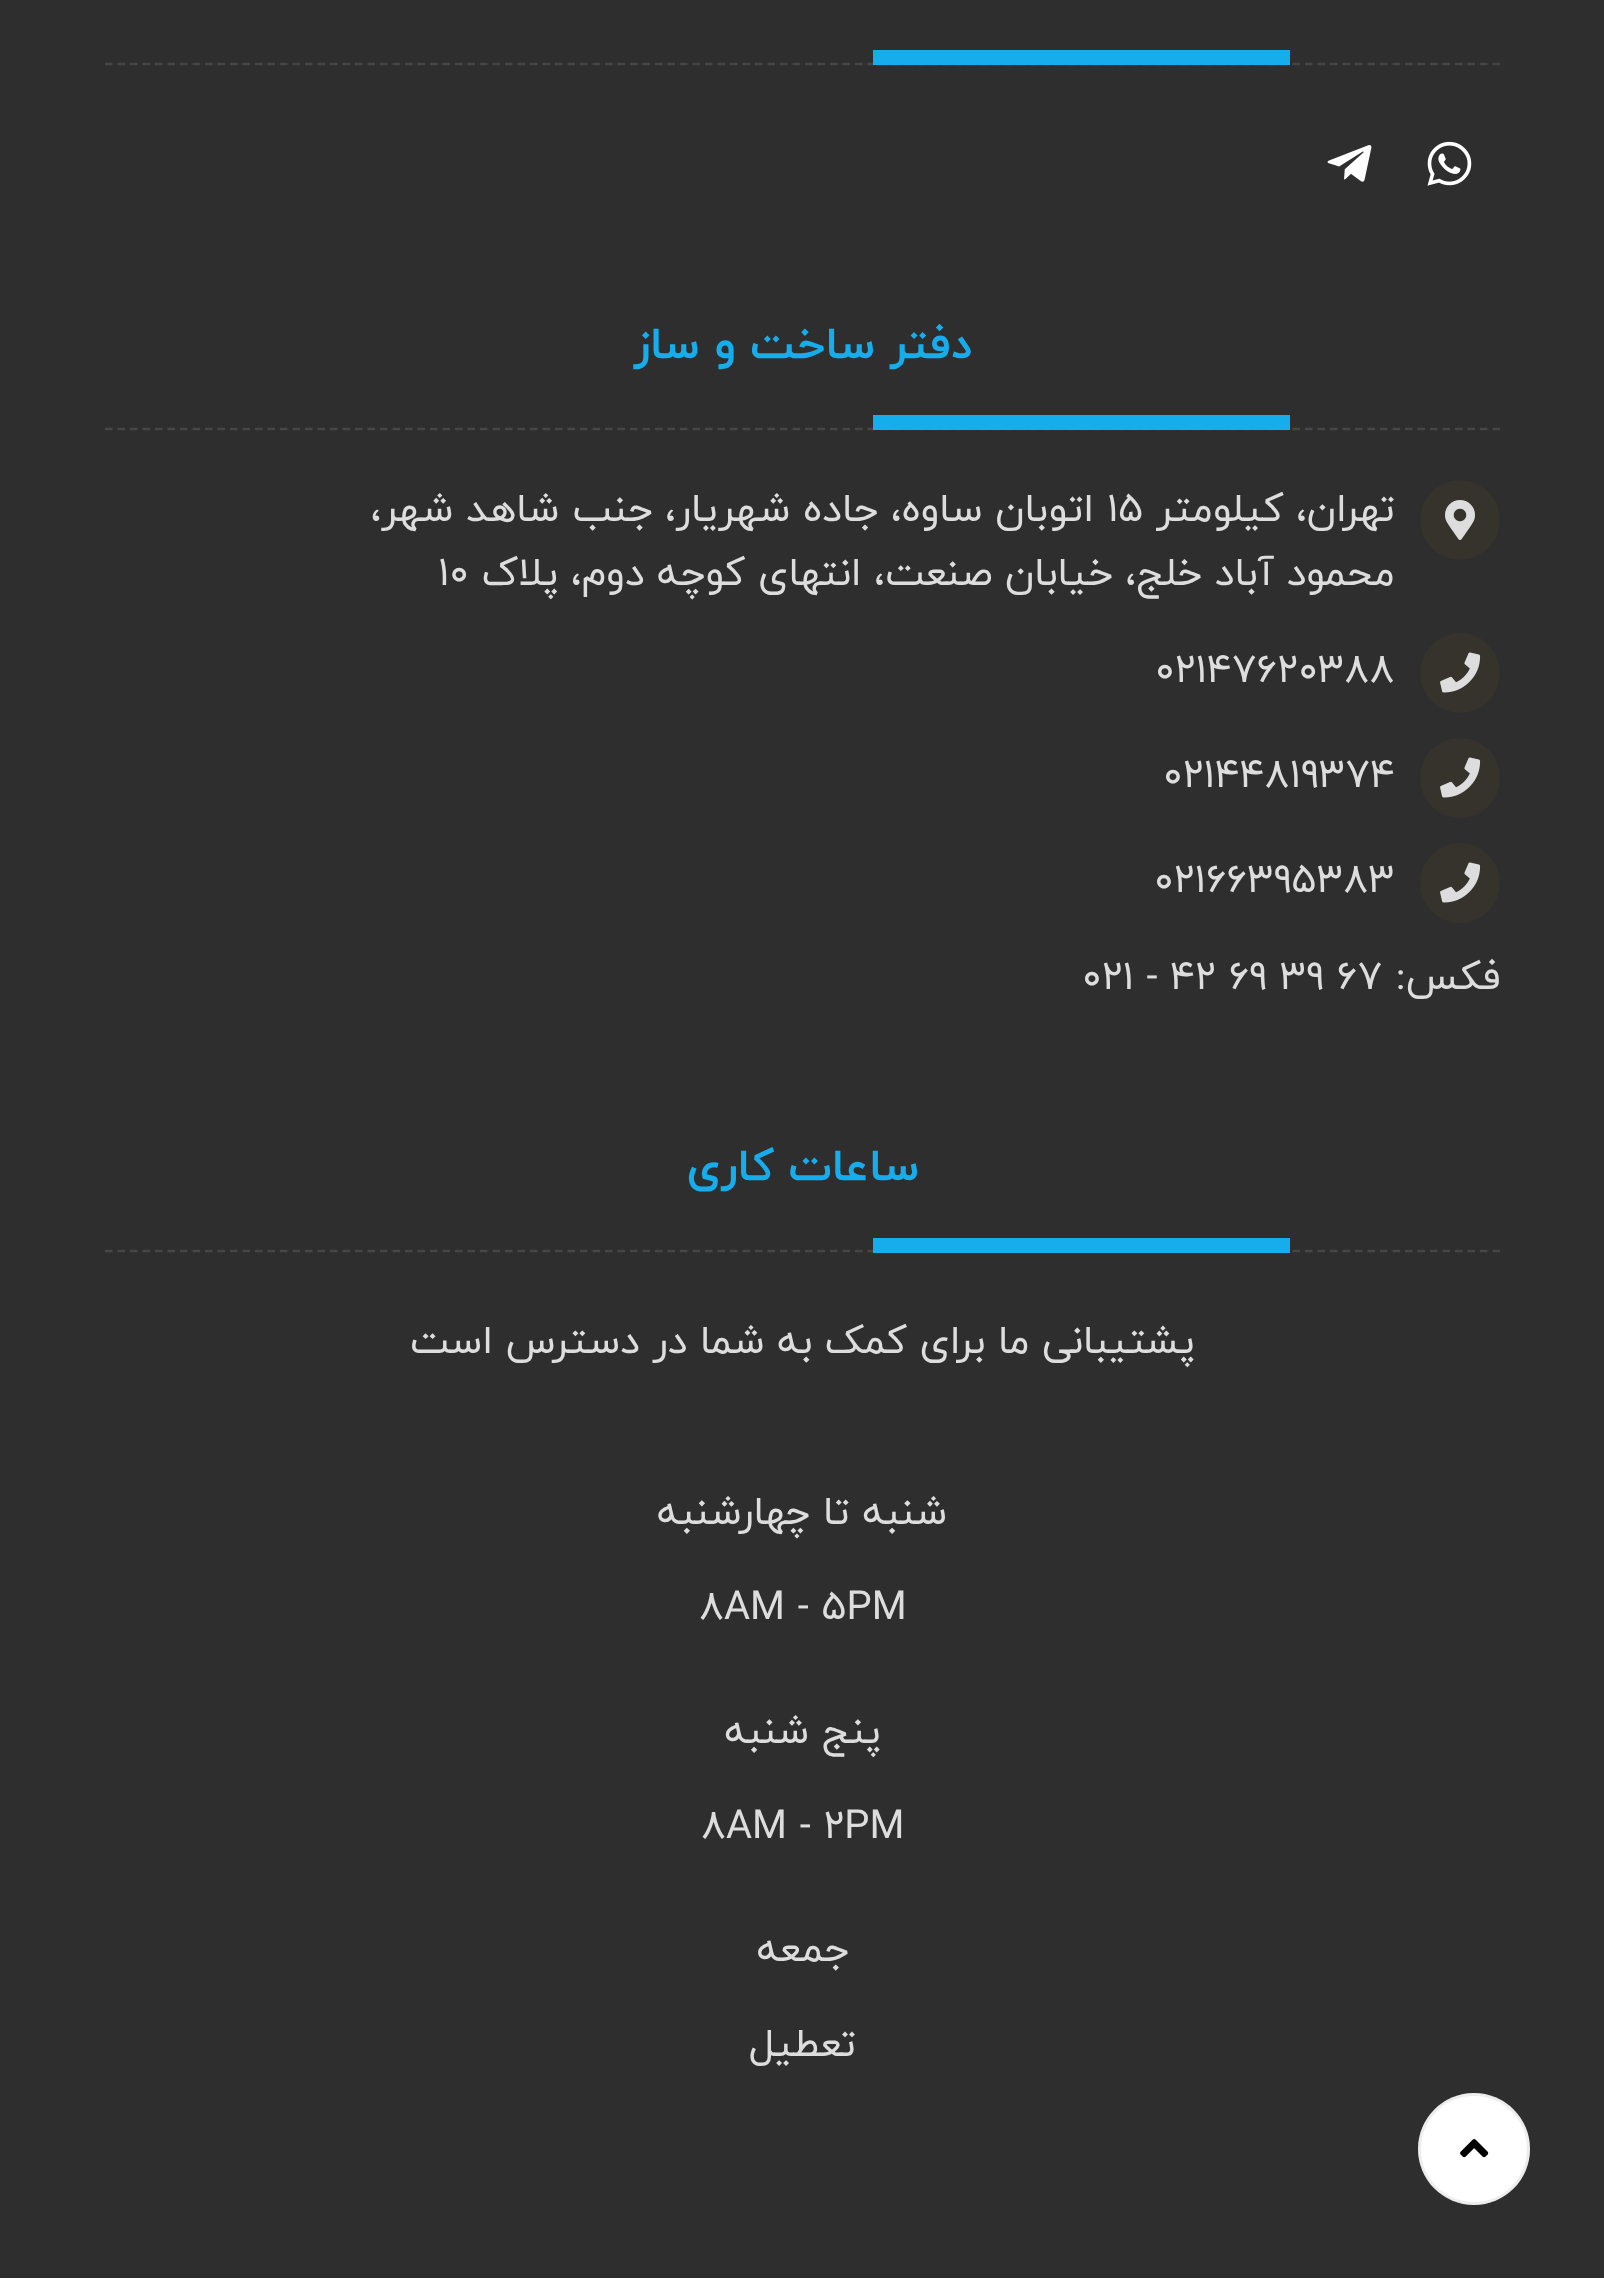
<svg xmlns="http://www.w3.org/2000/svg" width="1604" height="2279">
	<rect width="100%" height="100%" fill="#FFFFFF" />
	<rect x="0" y="0" width="1604" height="2278" fill="#2E2E2E" />
	<path d="M105 64H1500" fill="none" stroke="#464646" stroke-width="2.5" stroke-dasharray="7.5 5" />
	<rect x="873" y="50" width="417" height="15" fill="#16ADED" />
	<image x="1427" y="141" width="45" height="45" href="assets/img1.png" />
	<image x="1327" y="145" width="45" height="37" href="assets/img2.png" />
	<path d="M105 429H1500" fill="none" stroke="#464646" stroke-width="2.5" stroke-dasharray="7.5 5" />
	<text x="972" y="358" font-family="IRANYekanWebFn" font-size="45" font-weight="700" direction="rtl" fill="#16ADED">دفتر ساخت و ساز</text>
	<rect x="873" y="415" width="417" height="15" fill="#16ADED" />
	<circle cx="1460" cy="520" r="40" fill="#36332D" />
	<image x="1445" y="500" width="30" height="40" href="assets/img3.png" />
	<text x="1395" y="521" font-family="IRANYekanWebFn" font-size="40" direction="rtl" fill="#DDDDDD">تهران، کیلومتر</text>
	<text x="1107" y="521" font-family="IRANYekanWebFn" font-size="40" fill="#DDDDDD">15</text>
	<g font-family="IRANYekanWebFn" font-size="40" direction="rtl" fill="#DDDDDD">
		<text x="1094" y="521">اتوبان ساوه، جاده شهریار، جنب شاهد شهر،</text>
		<text x="1395" y="585">محمود آباد خلج، خیابان صنعت، انتهای کوچه دوم، پلاک</text>
	</g>
	<text x="438" y="585" font-family="IRANYekanWebFn" font-size="40" fill="#DDDDDD">10</text>
	<circle cx="1460" cy="673" r="40" fill="#36332D" />
	<image x="1440" y="652" width="41" height="41" href="assets/img4.png" />
	<text x="1155" y="682" font-family="IRANYekanWebFn" font-size="40" fill="#DDDDDD">02147620388</text>
	<circle cx="1460" cy="778" r="40" fill="#36332D" />
	<image x="1440" y="757" width="41" height="41" href="assets/img4.png" />
	<text x="1163" y="787" font-family="IRANYekanWebFn" font-size="40" fill="#DDDDDD">02144819374</text>
	<circle cx="1460" cy="883" r="40" fill="#36332D" />
	<image x="1440" y="862" width="41" height="41" href="assets/img4.png" />
	<text x="1154" y="892" font-family="IRANYekanWebFn" font-size="40" fill="#DDDDDD">02166395383</text>
	<text x="1500" y="989" font-family="IRANYekanWebFn" font-size="40" direction="rtl" fill="#DDDDDD">فکس:</text>
	<text x="1082" y="989" font-family="IRANYekanWebFn" font-size="40" fill="#DDDDDD">021 - 42 69 39 67</text>
	<path d="M105 1251H1500" fill="none" stroke="#464646" stroke-width="2.5" stroke-dasharray="7.5 5" />
	<text x="919" y="1180" font-family="IRANYekanWebFn" font-size="45" font-weight="700" direction="rtl" fill="#16ADED">ساعات کاری</text>
	<rect x="873" y="1238" width="417" height="15" fill="#16ADED" />
	<g font-family="IRANYekanWebFn" font-size="40" direction="rtl" fill="#DDDDDD">
		<text x="1195" y="1353">پشتیبانی ما برای کمک به شما در دسترس است</text>
		<text x="947" y="1524">شنبه تا چهارشنبه</text>
	</g>
	<text x="699" y="1619" font-family="IRANYekanWebFn" font-size="40" fill="#DDDDDD">8AM - 5PM</text>
	<text x="881" y="1743" font-family="IRANYekanWebFn" font-size="40" direction="rtl" fill="#DDDDDD">پنج شنبه</text>
	<text x="701" y="1838" font-family="IRANYekanWebFn" font-size="40" fill="#DDDDDD">8AM - 2PM</text>
	<g font-family="IRANYekanWebFn" font-size="40" direction="rtl" fill="#DDDDDD">
		<text x="849" y="1961">جمعه</text>
		<text x="856" y="2056">تعطیل</text>
	</g>
	<circle cx="1474" cy="2149" r="56" fill="#FFFFFF" />
	<circle cx="1474" cy="2149" r="54.5" fill="none" stroke="#A7A7A7" stroke-opacity="0.2" stroke-width="3" />
	<image x="1460" y="2139" width="29" height="19" href="assets/img5.png" />
</svg>
